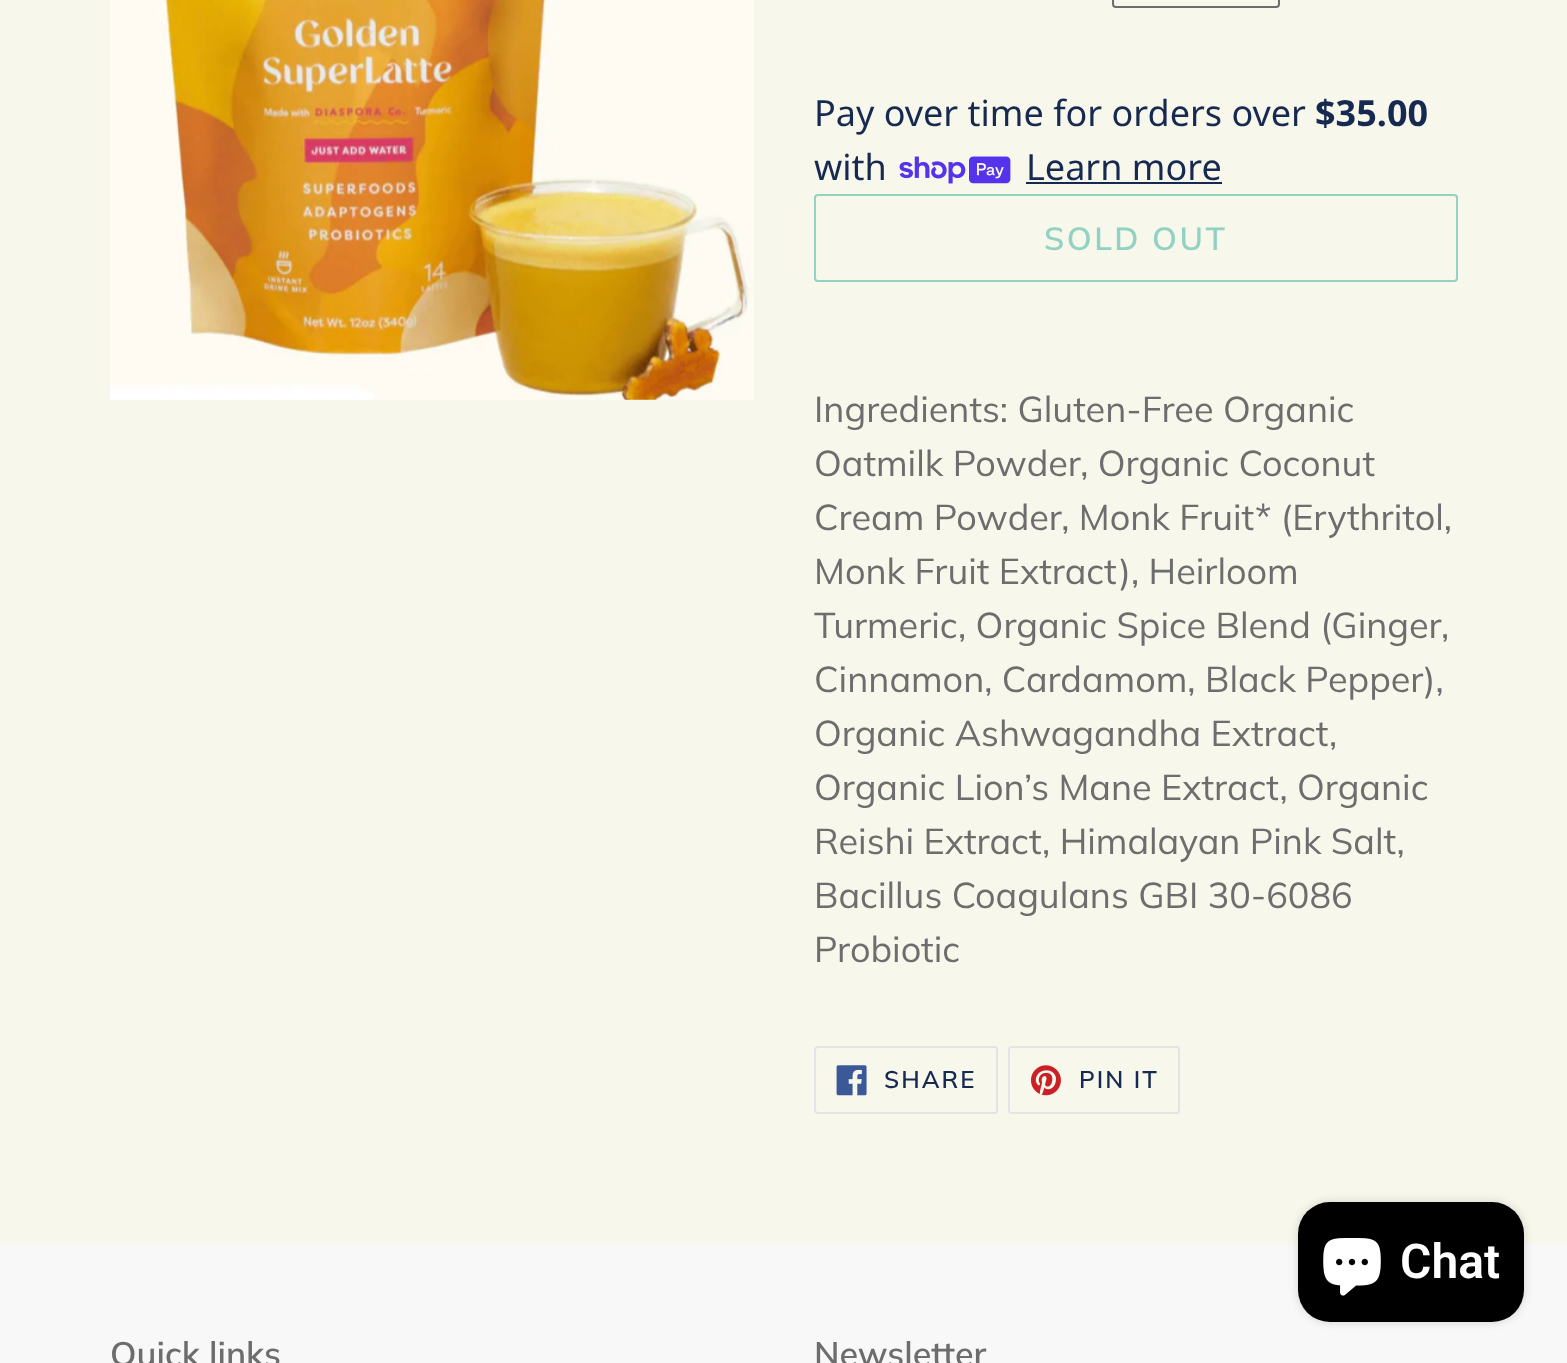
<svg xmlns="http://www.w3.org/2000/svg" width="1567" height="1363">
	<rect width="100%" height="100%" fill="#F7F7EB" />
	<image x="110" y="0" width="644" height="400" href="assets/img1.png" />
	<rect x="1113" y="-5" width="166" height="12" rx="3" fill="none" stroke="#6D6D6D" stroke-width="2" />
	<text x="814" y="126" font-family="Noto Sans" font-size="36" fill="#162950">Pay over time for orders over</text>
	<text x="1315" y="126" font-family="Noto Sans" font-size="36" font-weight="700" fill="#162950">$35.00</text>
	<text x="814" y="180" font-family="Noto Sans" font-size="36" fill="#162950">with</text>
	<image x="899" y="156" width="112" height="28" href="assets/img2.png" />
	<text x="1026" y="180" font-family="Noto Sans" font-size="36" fill="#162950">Learn more</text>
	<rect x="1026" y="182" width="196" height="2" fill="#162950" />
	<rect x="815" y="195" width="642" height="86" rx="3" fill="none" stroke="#91D2C3" stroke-width="2" />
	<text x="1044" y="250" font-family="Muli" font-size="32" font-weight="600" letter-spacing="2.5" fill="#91D2C3">SOLD OUT</text>
	<g font-family="Muli" font-size="36" fill="#6D6D6D">
		<text x="814" y="422">Ingredients: Gluten-Free Organic</text>
		<text x="814" y="476">Oatmilk Powder, Organic Coconut</text>
		<text x="814" y="530">Cream Powder, Monk Fruit* (Erythritol,</text>
		<text x="814" y="584">Monk Fruit Extract), Heirloom</text>
		<text x="814" y="638">Turmeric, Organic Spice Blend (Ginger,</text>
		<text x="814" y="692">Cinnamon, Cardamom, Black Pepper),</text>
		<text x="814" y="746">Organic Ashwagandha Extract,</text>
		<text x="814" y="800">Organic Lion’s Mane Extract, Organic</text>
		<text x="814" y="854">Reishi Extract, Himalayan Pink Salt,</text>
		<text x="814" y="908">Bacillus Coagulans GBI 30-6086</text>
		<text x="814" y="962">Probiotic</text>
	</g>
	<rect x="815" y="1047" width="182" height="66" rx="3" fill="none" stroke="#E4E4E4" stroke-width="2" />
	<image x="836" y="1065" width="31" height="31" href="assets/img3.png" />
	<text x="884" y="1088" font-family="Muli" font-size="24" font-weight="600" letter-spacing="2" fill="#162950">SHARE</text>
	<rect x="1009" y="1047" width="170" height="66" rx="3" fill="none" stroke="#E4E4E4" stroke-width="2" />
	<image x="1030" y="1065" width="31" height="31" href="assets/img4.png" />
	<text x="1079" y="1088" font-family="Muli" font-size="24" font-weight="600" letter-spacing="2" fill="#162950">PIN IT</text>
	<rect x="0" y="1244" width="1567" height="119" fill="#F8F8F8" />
	<g font-family="Muli" font-size="34" font-weight="600" fill="#6D6D6D">
		<text x="110" y="1366">Quick links</text>
		<text x="814" y="1366">Newsletter</text>
	</g>
	<rect x="1298" y="1202" width="226" height="120" rx="32" fill="#000000" fill-opacity="0.15" filter="blur(5px)" />
	<rect x="1298" y="1202" width="226" height="120" rx="32" fill="#000000" />
	<image x="1323" y="1238" width="58" height="58" href="assets/img5.png" />
	<text x="1400" y="1278" font-family="Roboto" font-size="48" font-weight="600" fill="#FFFFFF">Chat</text>
</svg>
